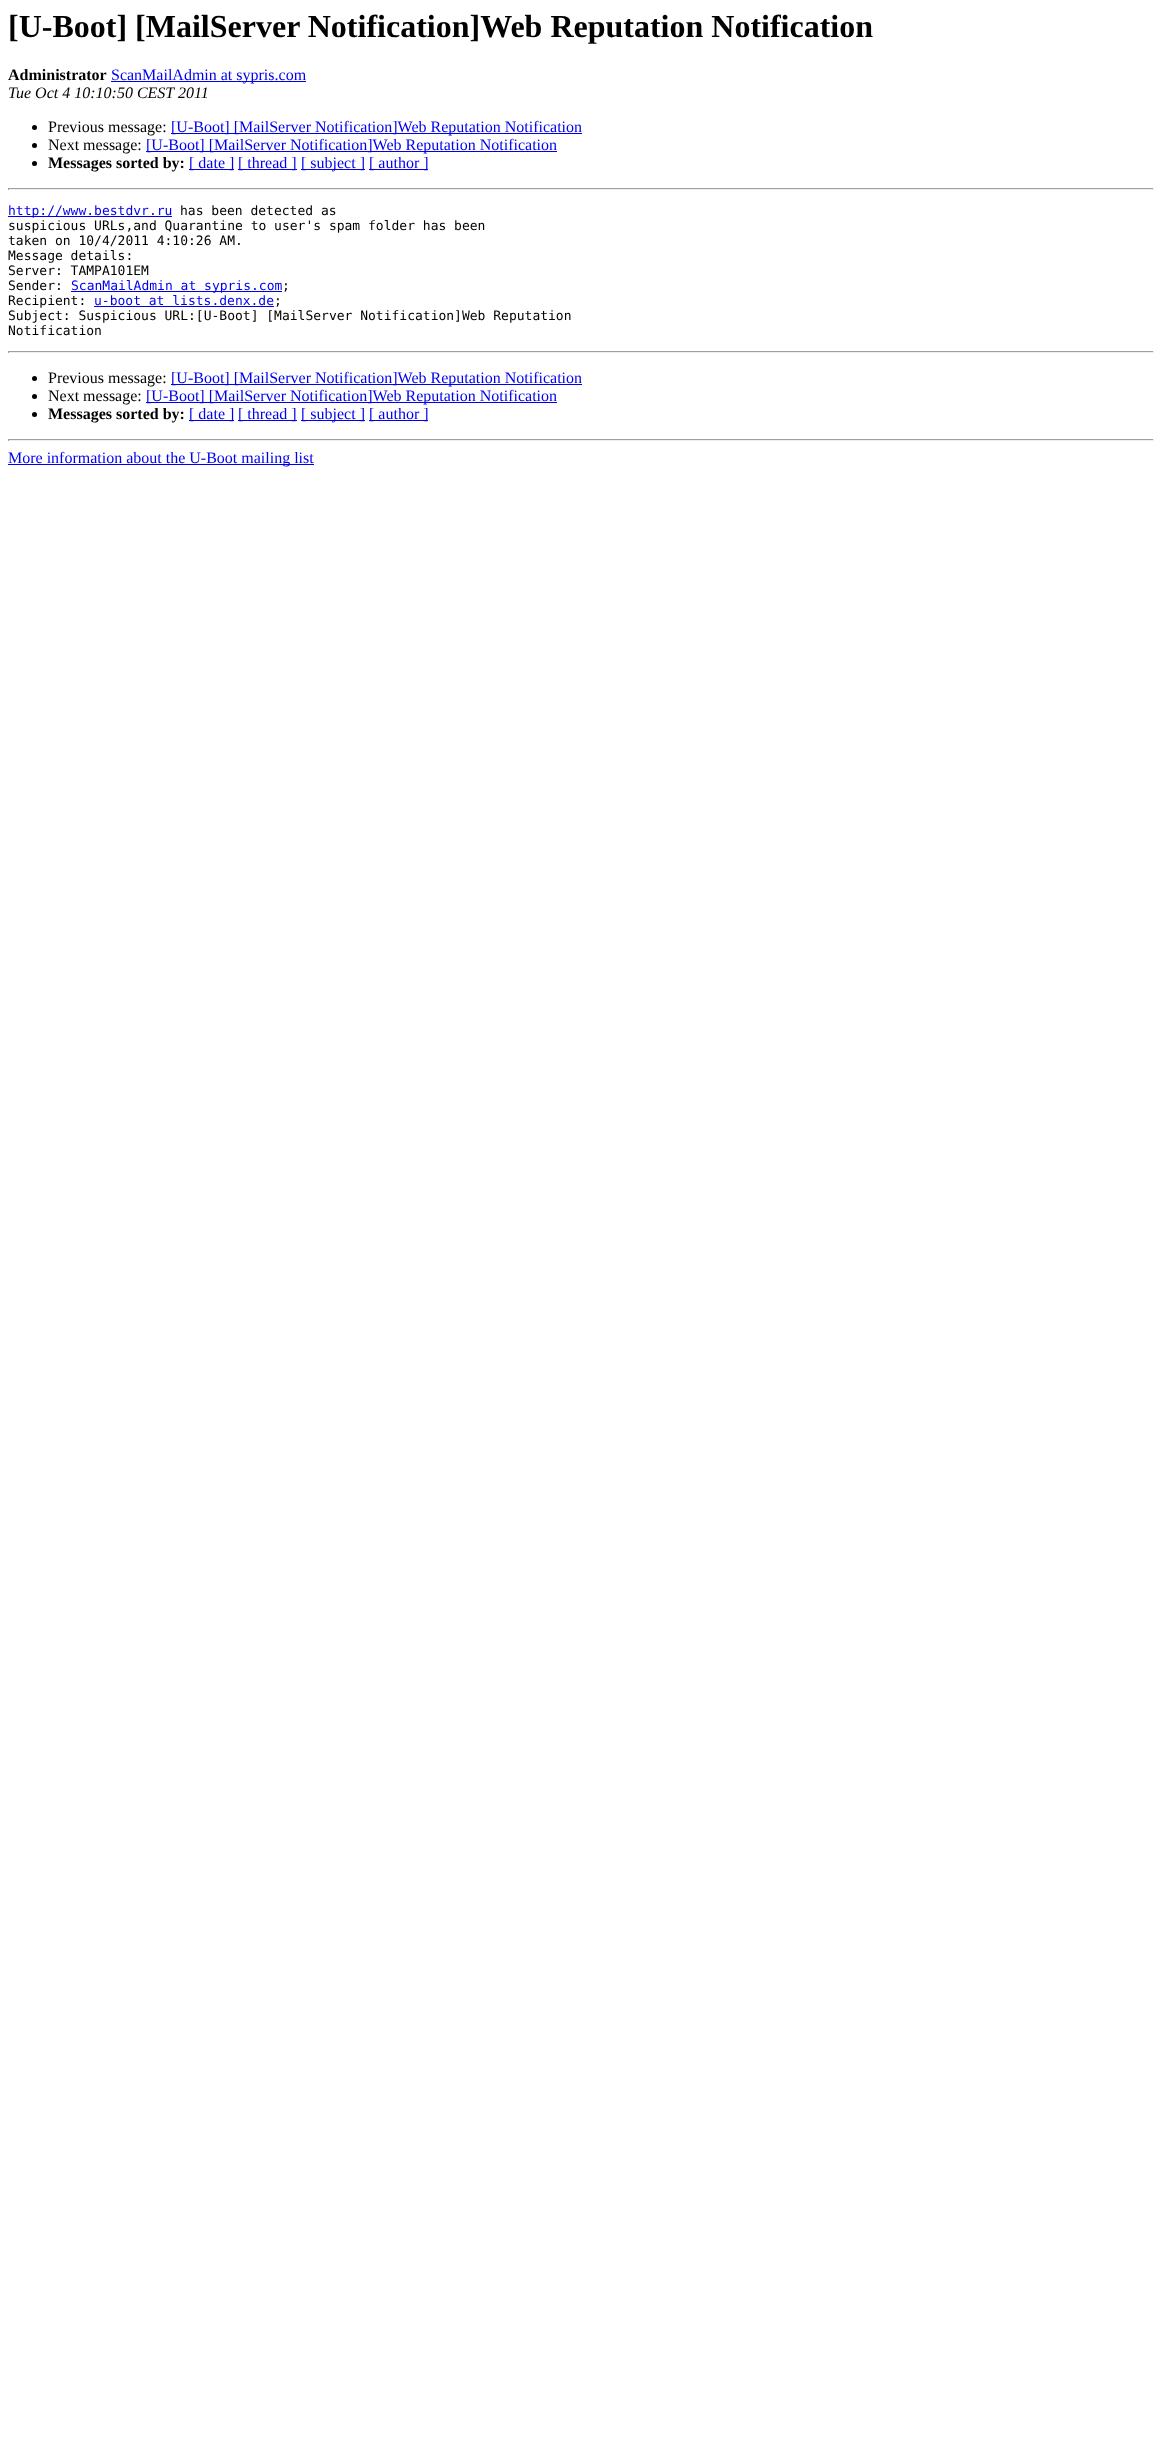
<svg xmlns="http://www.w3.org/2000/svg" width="1162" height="2458">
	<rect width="100%" height="100%" fill="#FFFFFF" />
	<text x="8" y="37" font-family="Liberation Serif" font-size="32" font-weight="700" fill="#000000">[U-Boot] [MailServer Notification]Web Reputation Notification</text>
	<text x="8" y="80" font-family="Liberation Serif" font-size="16" font-weight="700" fill="#000000">Administrator</text>
	<rect x="111" y="81" width="195" height="1" fill="#0000EE" />
	<text x="111" y="80" font-family="Liberation Serif" font-size="16" fill="#0000EE">ScanMailAdmin at sypris.com</text>
	<text x="8" y="98" font-family="Liberation Serif" font-size="16" font-style="italic" fill="#000000">Tue Oct 4 10:10:50 CEST 2011</text>
	<circle cx="34.5" cy="127.5" r="2.5" fill="#000000" />
	<text x="48" y="132" font-family="Liberation Serif" font-size="16" fill="#000000">Previous message:</text>
	<rect x="171" y="133" width="411" height="1" fill="#0000EE" />
	<text x="171" y="132" font-family="Liberation Serif" font-size="16" fill="#0000EE">[U-Boot] [MailServer Notification]Web Reputation Notification</text>
	<circle cx="34.5" cy="145.5" r="2.5" fill="#000000" />
	<text x="48" y="150" font-family="Liberation Serif" font-size="16" fill="#000000">Next message:</text>
	<rect x="146" y="151" width="411" height="1" fill="#0000EE" />
	<text x="146" y="150" font-family="Liberation Serif" font-size="16" fill="#0000EE">[U-Boot] [MailServer Notification]Web Reputation Notification</text>
	<circle cx="34.5" cy="163.5" r="2.5" fill="#000000" />
	<text x="48" y="168" font-family="Liberation Serif" font-size="16" font-weight="700" fill="#000000">Messages sorted by:</text>
	<rect x="189" y="169" width="45" height="1" fill="#0000EE" />
	<text x="189" y="168" font-family="Liberation Serif" font-size="16" fill="#0000EE">[ date ]</text>
	<rect x="238" y="169" width="59" height="1" fill="#0000EE" />
	<text x="238" y="168" font-family="Liberation Serif" font-size="16" fill="#0000EE">[ thread ]</text>
	<rect x="301" y="169" width="64" height="1" fill="#0000EE" />
	<text x="301" y="168" font-family="Liberation Serif" font-size="16" fill="#0000EE">[ subject ]</text>
	<rect x="369" y="169" width="59" height="1" fill="#0000EE" />
	<text x="369" y="168" font-family="Liberation Serif" font-size="16" fill="#0000EE">[ author ]</text>
	<rect x="8" y="188" width="1146" height="1" fill="#9F9F9F" />
	<rect x="1153" y="188" width="1" height="2" fill="#EEEEEE" />
	<rect x="8" y="189" width="1146" height="1" fill="#EEEEEE" />
	<rect x="8" y="188" width="1" height="2" fill="#9F9F9F" />
	<rect x="8" y="216" width="164" height="1" fill="#0000EE" />
	<text x="8" y="215" font-family="DejaVu Sans Mono" font-size="13" fill="#0000EE">http://www.bestdvr.ru</text>
	<g font-family="DejaVu Sans Mono" font-size="13" fill="#000000">
		<text x="180" y="215">has been detected as</text>
		<text x="8" y="230">suspicious URLs,and Quarantine to user's spam folder has been</text>
		<text x="8" y="245">taken on 10/4/2011 4:10:26 AM.</text>
		<text x="8" y="260">Message details:</text>
		<text x="8" y="275">Server: TAMPA101EM</text>
		<text x="8" y="290">Sender:</text>
	</g>
	<rect x="71" y="291" width="211" height="1" fill="#0000EE" />
	<text x="71" y="290" font-family="DejaVu Sans Mono" font-size="13" fill="#0000EE">ScanMailAdmin at sypris.com</text>
	<g font-family="DejaVu Sans Mono" font-size="13" fill="#000000">
		<text x="282" y="290">;</text>
		<text x="8" y="305">Recipient:</text>
	</g>
	<text x="94" y="305" font-family="DejaVu Sans Mono" font-size="13" fill="#0000EE">u-boot at lists.denx.de</text>
	<rect x="94" y="306" width="180" height="1" fill="#0000EE" />
	<g font-family="DejaVu Sans Mono" font-size="13" fill="#000000">
		<text x="274" y="305">;</text>
		<text x="8" y="320">Subject: Suspicious URL:[U-Boot] [MailServer Notification]Web Reputation</text>
		<text x="8" y="335">Notification</text>
	</g>
	<rect x="8" y="351" width="1146" height="1" fill="#9F9F9F" />
	<rect x="1153" y="351" width="1" height="2" fill="#EEEEEE" />
	<rect x="8" y="352" width="1146" height="1" fill="#EEEEEE" />
	<rect x="8" y="351" width="1" height="2" fill="#9F9F9F" />
	<circle cx="34.5" cy="378.5" r="2.5" fill="#000000" />
	<text x="48" y="383" font-family="Liberation Serif" font-size="16" fill="#000000">Previous message:</text>
	<rect x="171" y="384" width="411" height="1" fill="#0000EE" />
	<text x="171" y="383" font-family="Liberation Serif" font-size="16" fill="#0000EE">[U-Boot] [MailServer Notification]Web Reputation Notification</text>
	<circle cx="34.5" cy="396.5" r="2.5" fill="#000000" />
	<text x="48" y="401" font-family="Liberation Serif" font-size="16" fill="#000000">Next message:</text>
	<rect x="146" y="402" width="411" height="1" fill="#0000EE" />
	<text x="146" y="401" font-family="Liberation Serif" font-size="16" fill="#0000EE">[U-Boot] [MailServer Notification]Web Reputation Notification</text>
	<circle cx="34.5" cy="414.5" r="2.5" fill="#000000" />
	<text x="48" y="419" font-family="Liberation Serif" font-size="16" font-weight="700" fill="#000000">Messages sorted by:</text>
	<rect x="189" y="420" width="45" height="1" fill="#0000EE" />
	<text x="189" y="419" font-family="Liberation Serif" font-size="16" fill="#0000EE">[ date ]</text>
	<rect x="238" y="420" width="59" height="1" fill="#0000EE" />
	<text x="238" y="419" font-family="Liberation Serif" font-size="16" fill="#0000EE">[ thread ]</text>
	<rect x="301" y="420" width="64" height="1" fill="#0000EE" />
	<text x="301" y="419" font-family="Liberation Serif" font-size="16" fill="#0000EE">[ subject ]</text>
	<rect x="369" y="420" width="59" height="1" fill="#0000EE" />
	<text x="369" y="419" font-family="Liberation Serif" font-size="16" fill="#0000EE">[ author ]</text>
	<rect x="8" y="439" width="1146" height="1" fill="#9F9F9F" />
	<rect x="1153" y="439" width="1" height="2" fill="#EEEEEE" />
	<rect x="8" y="440" width="1146" height="1" fill="#EEEEEE" />
	<rect x="8" y="439" width="1" height="2" fill="#9F9F9F" />
	<rect x="8" y="464" width="306" height="1" fill="#0000EE" />
	<text x="8" y="463" font-family="Liberation Serif" font-size="16" fill="#0000EE">More information about the U-Boot mailing list</text>
</svg>
